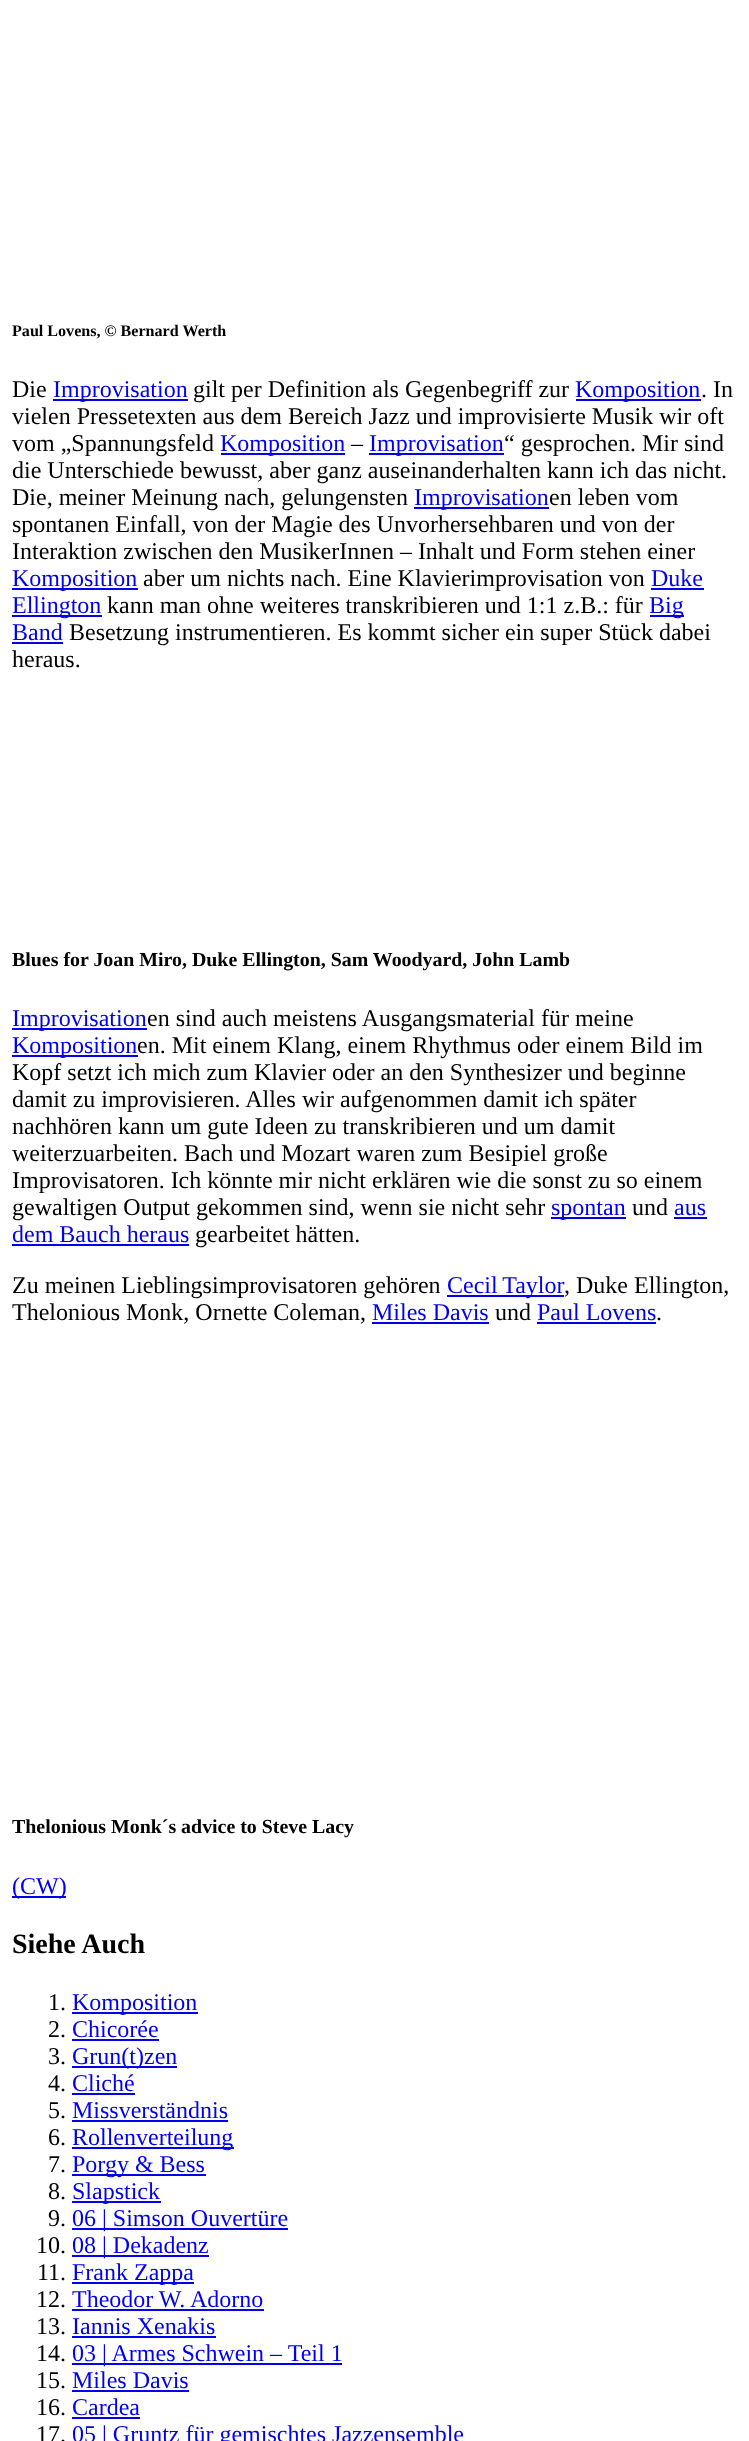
<svg xmlns="http://www.w3.org/2000/svg" width="749" height="2441">
	<rect width="100%" height="100%" fill="#FFFFFF" />
	<text x="12" y="336" font-family="Liberation Serif" font-size="16.1" font-weight="700" fill="#000000">Paul Lovens, © Bernard Werth</text>
	<text x="12" y="397" font-family="Liberation Serif" font-size="24" fill="#000000">Die</text>
	<rect x="53" y="399" width="135" height="2" fill="#0000EE" />
	<text x="53" y="397" font-family="Liberation Serif" font-size="24" fill="#0000EE">Improvisation</text>
	<text x="193" y="397" font-family="Liberation Serif" font-size="24" fill="#000000">gilt per Definition als Gegenbegriff zur</text>
	<rect x="576" y="399" width="125" height="2" fill="#0000EE" />
	<text x="575" y="397" font-family="Liberation Serif" font-size="24" fill="#0000EE">Komposition</text>
	<g font-family="Liberation Serif" font-size="24" fill="#000000">
		<text x="701" y="397">. In</text>
		<text x="12" y="424">vielen Pressetexten aus dem Bereich Jazz und improvisierte Musik wir oft</text>
		<text x="12" y="451">vom „Spannungsfeld</text>
	</g>
	<rect x="221" y="453" width="124" height="2" fill="#0000EE" />
	<text x="220" y="451" font-family="Liberation Serif" font-size="24" fill="#0000EE">Komposition</text>
	<text x="351" y="451" font-family="Liberation Serif" font-size="24" fill="#000000">–</text>
	<rect x="369" y="453" width="135" height="2" fill="#0000EE" />
	<text x="369" y="451" font-family="Liberation Serif" font-size="24" fill="#0000EE">Improvisation</text>
	<g font-family="Liberation Serif" font-size="24" fill="#000000">
		<text x="504" y="451">“ gesprochen. Mir sind</text>
		<text x="12" y="478">die Unterschiede bewusst, aber ganz auseinanderhalten kann ich das nicht.</text>
		<text x="12" y="505">Die, meiner Meinung nach, gelungensten</text>
	</g>
	<rect x="414" y="507" width="135" height="2" fill="#0000EE" />
	<text x="414" y="505" font-family="Liberation Serif" font-size="24" fill="#0000EE">Improvisation</text>
	<g font-family="Liberation Serif" font-size="24" fill="#000000">
		<text x="549" y="505">en leben vom</text>
		<text x="12" y="532">spontanen Einfall, von der Magie des Unvorhersehbaren und von der</text>
		<text x="12" y="559">Interaktion zwischen den MusikerInnen – Inhalt und Form stehen einer</text>
	</g>
	<rect x="12" y="588" width="126" height="2" fill="#0000EE" />
	<text x="12" y="586" font-family="Liberation Serif" font-size="24" fill="#0000EE">Komposition</text>
	<text x="143" y="586" font-family="Liberation Serif" font-size="24" fill="#000000">aber um nichts nach. Eine Klavierimprovisation von</text>
	<text x="651" y="586" font-family="Liberation Serif" font-size="24" fill="#0000EE">Duke</text>
	<rect x="651" y="588" width="53" height="2" fill="#0000EE" />
	<rect x="12" y="615" width="90" height="2" fill="#0000EE" />
	<text x="12" y="613" font-family="Liberation Serif" font-size="24" fill="#0000EE">Ellington</text>
	<text x="107" y="613" font-family="Liberation Serif" font-size="24" fill="#000000">kann man ohne weiteres transkribieren und 1:1 z.B.: für</text>
	<rect x="650" y="615" width="34" height="2" fill="#0000EE" />
	<g font-family="Liberation Serif" font-size="24" fill="#0000EE">
		<text x="649" y="613">Big</text>
		<text x="12" y="640">Band</text>
	</g>
	<rect x="12" y="642" width="51" height="2" fill="#0000EE" />
	<g font-family="Liberation Serif" font-size="24" fill="#000000">
		<text x="69" y="640">Besetzung instrumentieren. Es kommt sicher ein super Stück dabei</text>
		<text x="12" y="667">heraus.</text>
	</g>
	<text x="12" y="966" font-family="Liberation Serif" font-size="19.9" font-weight="700" fill="#000000">Blues for Joan Miro, Duke Ellington, Sam Woodyard, John Lamb</text>
	<rect x="12" y="1028" width="135" height="2" fill="#0000EE" />
	<text x="12" y="1026" font-family="Liberation Serif" font-size="24" fill="#0000EE">Improvisation</text>
	<text x="147" y="1026" font-family="Liberation Serif" font-size="24" fill="#000000">en sind auch meistens Ausgangsmaterial für meine</text>
	<rect x="12" y="1055" width="126" height="2" fill="#0000EE" />
	<text x="12" y="1053" font-family="Liberation Serif" font-size="24" fill="#0000EE">Komposition</text>
	<g font-family="Liberation Serif" font-size="24" fill="#000000">
		<text x="137" y="1053">en. Mit einem Klang, einem Rhythmus oder einem Bild im</text>
		<text x="12" y="1080">Kopf setzt ich mich zum Klavier oder an den Synthesizer und beginne</text>
		<text x="12" y="1107">damit zu improvisieren. Alles wir aufgenommen damit ich später</text>
		<text x="12" y="1134">nachhören kann um gute Ideen zu transkribieren und um damit</text>
		<text x="12" y="1161">weiterzuarbeiten. Bach und Mozart waren zum Besipiel große</text>
		<text x="12" y="1188">Improvisatoren. Ich könnte mir nicht erklären wie die sonst zu so einem</text>
		<text x="12" y="1215">gewaltigen Output gekommen sind, wenn sie nicht sehr</text>
	</g>
	<rect x="551" y="1217" width="75" height="2" fill="#0000EE" />
	<text x="551" y="1215" font-family="Liberation Serif" font-size="24" fill="#0000EE">spontan</text>
	<text x="632" y="1215" font-family="Liberation Serif" font-size="24" fill="#000000">und</text>
	<text x="674" y="1215" font-family="Liberation Serif" font-size="24" fill="#0000EE">aus</text>
	<rect x="674" y="1217" width="33" height="2" fill="#0000EE" />
	<text x="12" y="1242" font-family="Liberation Serif" font-size="24" fill="#0000EE">dem Bauch heraus</text>
	<rect x="12" y="1244" width="177" height="2" fill="#0000EE" />
	<g font-family="Liberation Serif" font-size="24" fill="#000000">
		<text x="195" y="1242">gearbeitet hätten.</text>
		<text x="12" y="1293">Zu meinen Lieblingsimprovisatoren gehören</text>
	</g>
	<rect x="447" y="1295" width="117" height="2" fill="#0000EE" />
	<text x="447" y="1293" word-spacing="-1" font-family="Liberation Serif" font-size="24" fill="#0000EE">Cecil Taylor</text>
	<g font-family="Liberation Serif" font-size="24" fill="#000000">
		<text x="564" y="1293">, Duke Ellington,</text>
		<text x="12" y="1320">Thelonious Monk, Ornette Coleman,</text>
	</g>
	<text x="372" y="1320" font-family="Liberation Serif" font-size="24" fill="#0000EE">Miles Davis</text>
	<rect x="372" y="1322" width="117" height="2" fill="#0000EE" />
	<text x="495" y="1320" font-family="Liberation Serif" font-size="24" fill="#000000">und</text>
	<text x="537" y="1320" font-family="Liberation Serif" font-size="24" fill="#0000EE">Paul Lovens</text>
	<rect x="537" y="1322" width="119" height="2" fill="#0000EE" />
	<text x="656" y="1320" font-family="Liberation Serif" font-size="24" fill="#000000">.</text>
	<text x="12" y="1833" font-family="Liberation Serif" font-size="19.9" font-weight="700" fill="#000000">Thelonious Monk´s advice to Steve Lacy</text>
	<rect x="12" y="1896" width="54" height="2" fill="#0000EE" />
	<text x="12" y="1894" font-family="Liberation Serif" font-size="24" fill="#0000EE">(CW)</text>
	<text x="12" y="1953" font-family="Liberation Serif" font-size="28" font-weight="700" fill="#000000">Siehe Auch</text>
	<text x="48" y="2010" font-family="Liberation Serif" font-size="24" fill="#000000">1.</text>
	<rect x="72" y="2012" width="126" height="2" fill="#0000EE" />
	<text x="72" y="2010" font-family="Liberation Serif" font-size="24" fill="#0000EE">Komposition</text>
	<text x="48" y="2037" font-family="Liberation Serif" font-size="24" fill="#000000">2.</text>
	<text x="72" y="2037" font-family="Liberation Serif" font-size="24" fill="#0000EE">Chicorée</text>
	<rect x="72" y="2039" width="87" height="2" fill="#0000EE" />
	<text x="48" y="2064" font-family="Liberation Serif" font-size="24" fill="#000000">3.</text>
	<rect x="72" y="2066" width="105" height="2" fill="#0000EE" />
	<text x="72" y="2064" font-family="Liberation Serif" font-size="24" fill="#0000EE">Grun(t)zen</text>
	<text x="48" y="2091" font-family="Liberation Serif" font-size="24" fill="#000000">4.</text>
	<text x="72" y="2091" font-family="Liberation Serif" font-size="24" fill="#0000EE">Cliché</text>
	<rect x="72" y="2093" width="63" height="2" fill="#0000EE" />
	<text x="48" y="2118" font-family="Liberation Serif" font-size="24" fill="#000000">5.</text>
	<text x="72" y="2118" font-family="Liberation Serif" font-size="24" fill="#0000EE">Missverständnis</text>
	<rect x="72" y="2120" width="156" height="2" fill="#0000EE" />
	<text x="48" y="2145" font-family="Liberation Serif" font-size="24" fill="#000000">6.</text>
	<rect x="72" y="2147" width="162" height="2" fill="#0000EE" />
	<text x="72" y="2145" font-family="Liberation Serif" font-size="24" fill="#0000EE">Rollenverteilung</text>
	<text x="48" y="2172" font-family="Liberation Serif" font-size="24" fill="#000000">7.</text>
	<rect x="72" y="2174" width="134" height="2" fill="#0000EE" />
	<text x="72" y="2172" font-family="Liberation Serif" font-size="24" fill="#0000EE">Porgy &amp; Bess</text>
	<text x="48" y="2199" font-family="Liberation Serif" font-size="24" fill="#000000">8.</text>
	<rect x="72" y="2201" width="89" height="2" fill="#0000EE" />
	<text x="72" y="2199" font-family="Liberation Serif" font-size="24" fill="#0000EE">Slapstick</text>
	<text x="48" y="2226" font-family="Liberation Serif" font-size="24" fill="#000000">9.</text>
	<rect x="72" y="2228" width="216" height="2" fill="#0000EE" />
	<text x="72" y="2226" font-family="Liberation Serif" font-size="24" fill="#0000EE">06 | Simson Ouvertüre</text>
	<text x="36" y="2253" font-family="Liberation Serif" font-size="24" fill="#000000">10.</text>
	<rect x="72" y="2255" width="137" height="2" fill="#0000EE" />
	<text x="72" y="2253" font-family="Liberation Serif" font-size="24" fill="#0000EE">08 | Dekadenz</text>
	<text x="37" y="2280" font-family="Liberation Serif" font-size="24" fill="#000000">11.</text>
	<rect x="72" y="2282" width="122" height="2" fill="#0000EE" />
	<text x="72" y="2280" font-family="Liberation Serif" font-size="24" fill="#0000EE">Frank Zappa</text>
	<text x="36" y="2307" font-family="Liberation Serif" font-size="24" fill="#000000">12.</text>
	<text x="72" y="2307" font-family="Liberation Serif" font-size="24" fill="#0000EE">Theodor W. Adorno</text>
	<rect x="72" y="2309" width="192" height="2" fill="#0000EE" />
	<text x="36" y="2334" font-family="Liberation Serif" font-size="24" fill="#000000">13.</text>
	<text x="72" y="2334" font-family="Liberation Serif" font-size="24" fill="#0000EE">Iannis Xenakis</text>
	<rect x="72" y="2336" width="144" height="2" fill="#0000EE" />
	<text x="36" y="2361" font-family="Liberation Serif" font-size="24" fill="#000000">14.</text>
	<rect x="72" y="2363" width="270" height="2" fill="#0000EE" />
	<text x="72" y="2361" font-family="Liberation Serif" font-size="24" fill="#0000EE">03 | Armes Schwein – Teil 1</text>
	<text x="36" y="2388" font-family="Liberation Serif" font-size="24" fill="#000000">15.</text>
	<text x="72" y="2388" font-family="Liberation Serif" font-size="24" fill="#0000EE">Miles Davis</text>
	<rect x="72" y="2390" width="117" height="2" fill="#0000EE" />
	<text x="36" y="2415" font-family="Liberation Serif" font-size="24" fill="#000000">16.</text>
	<text x="72" y="2415" font-family="Liberation Serif" font-size="24" fill="#0000EE">Cardea</text>
	<rect x="72" y="2417" width="68" height="2" fill="#0000EE" />
	<text x="36" y="2442" font-family="Liberation Serif" font-size="24" fill="#000000">17.</text>
	<text x="72" y="2442" font-family="Liberation Serif" font-size="24" fill="#0000EE">05 | Gruntz für gemischtes Jazzensemble</text>
</svg>
